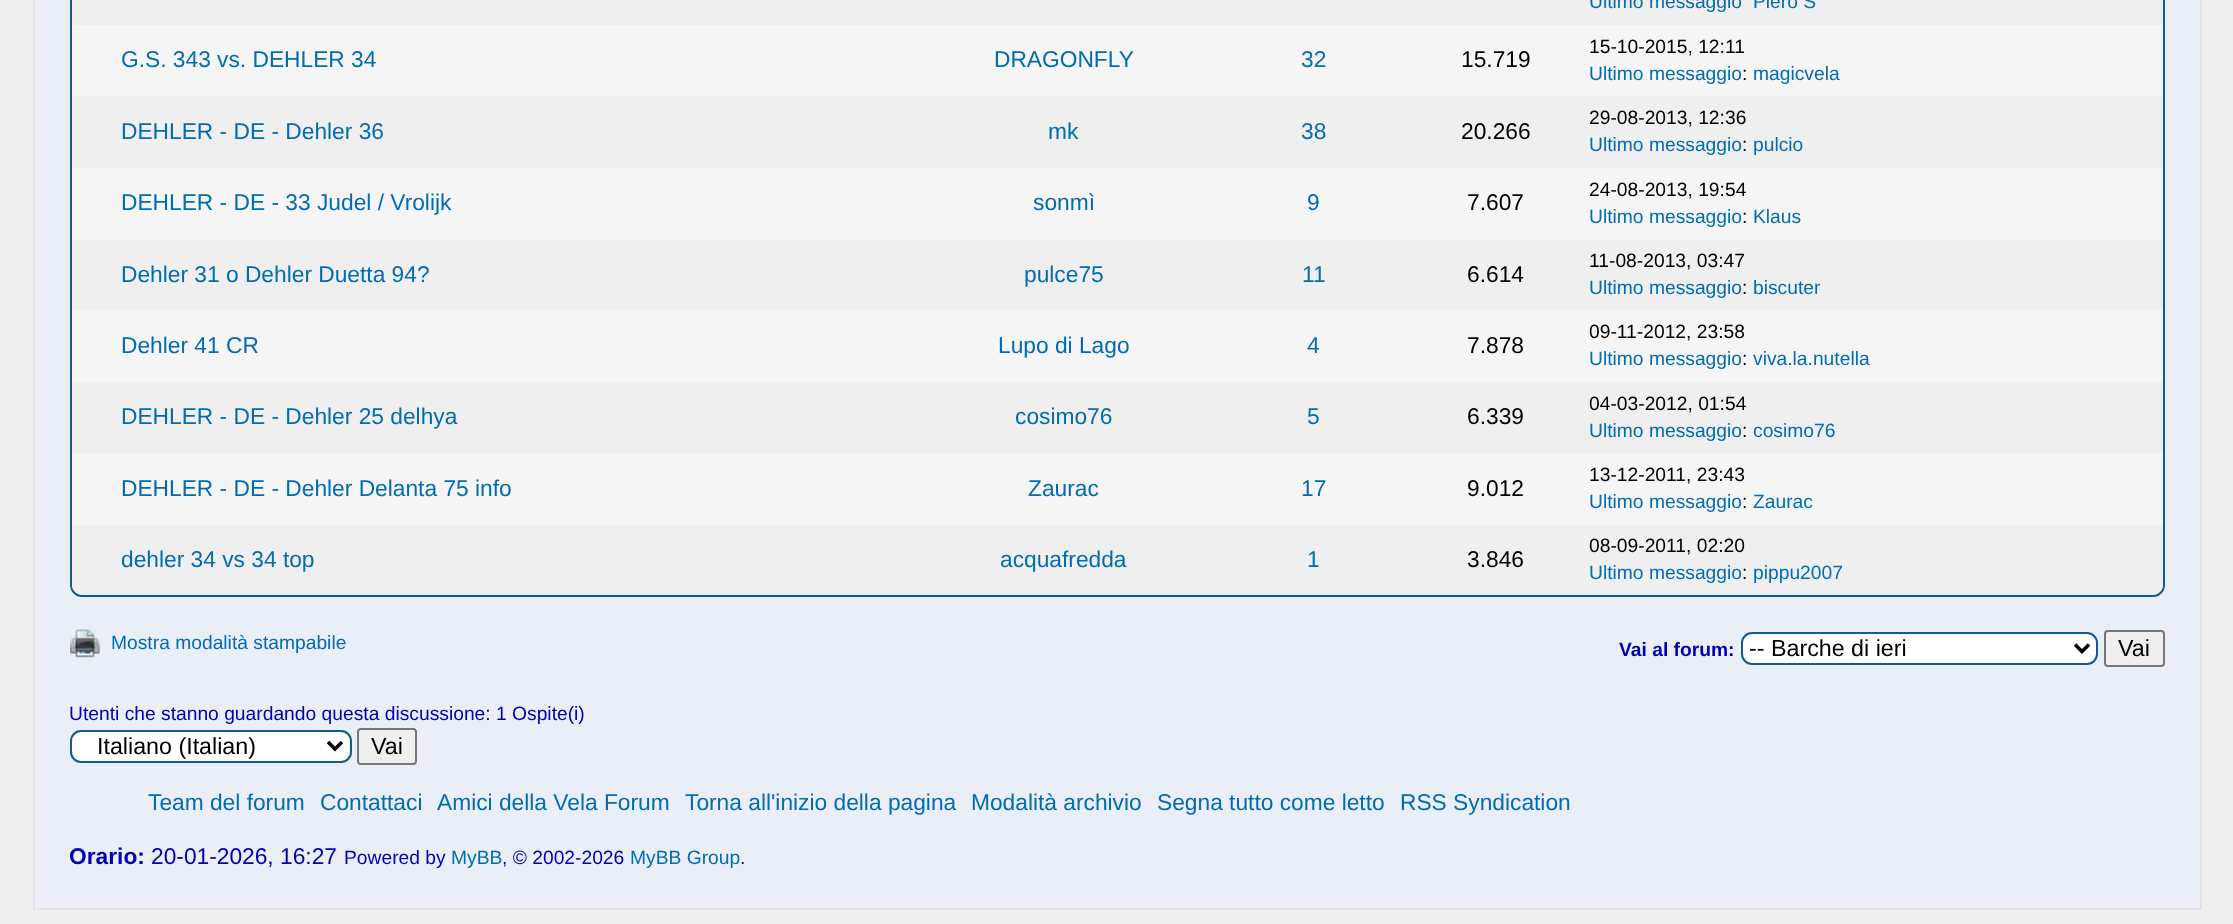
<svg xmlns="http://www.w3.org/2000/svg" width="2233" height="924">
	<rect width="100%" height="100%" fill="#EFEFEF" />
	<rect x="34" y="-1" width="2167" height="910" fill="#EAEEF7" stroke="#E4E4E4" stroke-width="2" />
	<rect x="71" y="-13" width="2093" height="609" rx="11" fill="#FFFFFF" stroke="#0F5C8E" stroke-width="2" />
	<rect x="72" y="0" width="2091" height="25" fill="#EFEFEF" />
	<g font-family="Liberation Sans" font-size="19.25" fill="#026CB1">
		<text x="1589" y="8">Ultimo messaggio</text>
		<text x="1753" y="8">Piero S</text>
	</g>
	<rect x="72" y="25" width="2091" height="71" fill="#F5F5F5" />
	<g font-family="Liberation Sans" font-size="22.75" fill="#026CB1">
		<text x="121" y="67">G.S. 343 vs. DEHLER 34</text>
		<text x="994" y="67">DRAGONFLY</text>
		<text x="1301" y="67">32</text>
	</g>
	<text x="1461" y="67" font-family="Liberation Sans" font-size="22.75" fill="#000000">15.719</text>
	<text x="1589" y="53" font-family="Liberation Sans" font-size="19.25" fill="#000000">15-10-2015, 12:11</text>
	<text x="1589" y="80" font-family="Liberation Sans" font-size="19.25" fill="#026CB1">Ultimo messaggio</text>
	<text x="1742" y="80" font-family="Liberation Sans" font-size="19.25" fill="#000000">:</text>
	<text x="1753" y="80" font-family="Liberation Sans" font-size="19.25" fill="#026CB1">magicvela</text>
	<rect x="72" y="96" width="2091" height="72" fill="#EFEFEF" />
	<g font-family="Liberation Sans" font-size="22.75" fill="#026CB1">
		<text x="121" y="139">DEHLER - DE - Dehler 36</text>
		<text x="1048" y="139">mk</text>
		<text x="1301" y="139">38</text>
	</g>
	<text x="1461" y="139" font-family="Liberation Sans" font-size="22.75" fill="#000000">20.266</text>
	<text x="1589" y="124" font-family="Liberation Sans" font-size="19.25" fill="#000000">29-08-2013, 12:36</text>
	<text x="1589" y="151" font-family="Liberation Sans" font-size="19.25" fill="#026CB1">Ultimo messaggio</text>
	<text x="1742" y="151" font-family="Liberation Sans" font-size="19.25" fill="#000000">:</text>
	<text x="1753" y="151" font-family="Liberation Sans" font-size="19.25" fill="#026CB1">pulcio</text>
	<rect x="72" y="168" width="2091" height="72" fill="#F5F5F5" />
	<g font-family="Liberation Sans" font-size="22.75" fill="#026CB1">
		<text x="121" y="210">DEHLER - DE - 33 Judel / Vrolijk</text>
		<text x="1033" y="210">sonmì</text>
		<text x="1307" y="210">9</text>
	</g>
	<text x="1467" y="210" font-family="Liberation Sans" font-size="22.75" fill="#000000">7.607</text>
	<text x="1589" y="196" font-family="Liberation Sans" font-size="19.25" fill="#000000">24-08-2013, 19:54</text>
	<text x="1589" y="223" font-family="Liberation Sans" font-size="19.25" fill="#026CB1">Ultimo messaggio</text>
	<text x="1742" y="223" font-family="Liberation Sans" font-size="19.25" fill="#000000">:</text>
	<text x="1753" y="223" font-family="Liberation Sans" font-size="19.25" fill="#026CB1">Klaus</text>
	<rect x="72" y="240" width="2091" height="70" fill="#EFEFEF" />
	<g font-family="Liberation Sans" font-size="22.75" fill="#026CB1">
		<text x="121" y="282">Dehler 31 o Dehler Duetta 94?</text>
		<text x="1024" y="282">pulce75</text>
		<text x="1302" y="282">11</text>
	</g>
	<text x="1467" y="282" font-family="Liberation Sans" font-size="22.75" fill="#000000">6.614</text>
	<text x="1589" y="267" font-family="Liberation Sans" font-size="19.25" fill="#000000">11-08-2013, 03:47</text>
	<text x="1589" y="294" font-family="Liberation Sans" font-size="19.25" fill="#026CB1">Ultimo messaggio</text>
	<text x="1742" y="294" font-family="Liberation Sans" font-size="19.25" fill="#000000">:</text>
	<text x="1753" y="294" font-family="Liberation Sans" font-size="19.25" fill="#026CB1">biscuter</text>
	<rect x="72" y="310" width="2091" height="72" fill="#F5F5F5" />
	<g font-family="Liberation Sans" font-size="22.75" fill="#026CB1">
		<text x="121" y="353">Dehler 41 CR</text>
		<text x="998" y="353">Lupo di Lago</text>
		<text x="1307" y="353">4</text>
	</g>
	<text x="1467" y="353" font-family="Liberation Sans" font-size="22.75" fill="#000000">7.878</text>
	<text x="1589" y="338" font-family="Liberation Sans" font-size="19.25" fill="#000000">09-11-2012, 23:58</text>
	<text x="1589" y="365" font-family="Liberation Sans" font-size="19.25" fill="#026CB1">Ultimo messaggio</text>
	<text x="1742" y="365" font-family="Liberation Sans" font-size="19.25" fill="#000000">:</text>
	<text x="1753" y="365" font-family="Liberation Sans" font-size="19.25" fill="#026CB1">viva.la.nutella</text>
	<rect x="72" y="382" width="2091" height="71" fill="#EFEFEF" />
	<g font-family="Liberation Sans" font-size="22.75" fill="#026CB1">
		<text x="121" y="424">DEHLER - DE - Dehler 25 delhya</text>
		<text x="1015" y="424">cosimo76</text>
		<text x="1307" y="424">5</text>
	</g>
	<text x="1467" y="424" font-family="Liberation Sans" font-size="22.75" fill="#000000">6.339</text>
	<text x="1589" y="410" font-family="Liberation Sans" font-size="19.25" fill="#000000">04-03-2012, 01:54</text>
	<text x="1589" y="437" font-family="Liberation Sans" font-size="19.25" fill="#026CB1">Ultimo messaggio</text>
	<text x="1742" y="437" font-family="Liberation Sans" font-size="19.25" fill="#000000">:</text>
	<text x="1753" y="437" font-family="Liberation Sans" font-size="19.25" fill="#026CB1">cosimo76</text>
	<rect x="72" y="453" width="2091" height="72" fill="#F5F5F5" />
	<g font-family="Liberation Sans" font-size="22.75" fill="#026CB1">
		<text x="121" y="496">DEHLER - DE - Dehler Delanta 75 info</text>
		<text x="1028" y="496">Zaurac</text>
		<text x="1301" y="496">17</text>
	</g>
	<text x="1467" y="496" font-family="Liberation Sans" font-size="22.75" fill="#000000">9.012</text>
	<text x="1589" y="481" font-family="Liberation Sans" font-size="19.25" fill="#000000">13-12-2011, 23:43</text>
	<text x="1589" y="508" font-family="Liberation Sans" font-size="19.25" fill="#026CB1">Ultimo messaggio</text>
	<text x="1742" y="508" font-family="Liberation Sans" font-size="19.25" fill="#000000">:</text>
	<text x="1753" y="508" font-family="Liberation Sans" font-size="19.25" fill="#026CB1">Zaurac</text>
	<path d="M72 525H112V595H83C77 595 72 590 72 584Z" fill="#EFEFEF" />
	<rect x="112" y="525" width="1468" height="70" fill="#EFEFEF" />
	<g font-family="Liberation Sans" font-size="22.75" fill="#026CB1">
		<text x="121" y="567">dehler 34 vs 34 top</text>
		<text x="1000" y="567">acquafredda</text>
		<text x="1307" y="567">1</text>
	</g>
	<text x="1467" y="567" font-family="Liberation Sans" font-size="22.75" fill="#000000">3.846</text>
	<path d="M1580 525H2163V584C2163 590 2158 595 2152 595H1580Z" fill="#EFEFEF" />
	<text x="1589" y="552" font-family="Liberation Sans" font-size="19.25" fill="#000000">08-09-2011, 02:20</text>
	<text x="1589" y="579" font-family="Liberation Sans" font-size="19.25" fill="#026CB1">Ultimo messaggio</text>
	<text x="1742" y="579" font-family="Liberation Sans" font-size="19.25" fill="#000000">:</text>
	<text x="1753" y="579" font-family="Liberation Sans" font-size="19.25" fill="#026CB1">pippu2007</text>
	<image x="70" y="629" width="30" height="29" href="assets/img1.png" />
	<text x="111" y="649" font-family="Liberation Sans" font-size="19.25" fill="#026CB1">Mostra modalità stampabile</text>
	<text x="1619" y="656" font-family="Liberation Sans" font-size="19.25" font-weight="700" fill="#0000B3">Vai al forum:</text>
	<rect x="1742" y="633" width="355" height="31" rx="10" fill="#FFFFFF" stroke="#0F5C8E" stroke-width="2" />
	<path d="M2075 644.5L2082 651.5L2089 644.5" fill="none" stroke="#000000" stroke-width="3.5" />
	<text x="1749" y="656" font-family="Liberation Sans" font-size="23.25" fill="#000000">-- Barche di ieri</text>
	<rect x="2105" y="631" width="59" height="35" rx="3" fill="#EFEFEF" stroke="#767676" stroke-width="2" />
	<text x="2118" y="656" font-family="Liberation Sans" font-size="23.25" fill="#000000">Vai</text>
	<text x="69" y="720" font-family="Liberation Sans" font-size="19.25" fill="#0000B3">Utenti che stanno guardando questa discussione: 1 Ospite(i)</text>
	<rect x="71" y="731" width="280" height="31" rx="10" fill="#FFFFFF" stroke="#0F5C8E" stroke-width="2" />
	<path d="M328 742L335 749L342 742" fill="none" stroke="#000000" stroke-width="3.5" />
	<text x="97" y="754" font-family="Liberation Sans" font-size="23.25" fill="#000000">Italiano (Italian)</text>
	<rect x="358" y="729" width="58" height="35" rx="3" fill="#EFEFEF" stroke="#767676" stroke-width="2" />
	<text x="371" y="754" font-family="Liberation Sans" font-size="23.25" fill="#000000">Vai</text>
	<g font-family="Liberation Sans" font-size="22.75" fill="#026CB1">
		<text x="148" y="810">Team del forum</text>
		<text x="320" y="810">Contattaci</text>
		<text x="437" y="810">Amici della Vela Forum</text>
		<text x="685" y="810">Torna all'inizio della pagina</text>
		<text x="971" y="810">Modalità archivio</text>
		<text x="1157" y="810">Segna tutto come letto</text>
		<text x="1400" y="810">RSS Syndication</text>
	</g>
	<text x="69" y="864" font-family="Liberation Sans" font-size="22.75" font-weight="700" fill="#0000B3">Orario:</text>
	<text x="151" y="864" font-family="Liberation Sans" font-size="22.75" fill="#0000B3">20-01-2026, 16:27</text>
	<text x="344" y="864" font-family="Liberation Sans" font-size="19.25" fill="#0000B3">Powered by</text>
	<text x="451" y="864" font-family="Liberation Sans" font-size="19.25" fill="#026CB1">MyBB</text>
	<text x="502" y="864" font-family="Liberation Sans" font-size="19.25" fill="#0000B3">, © 2002-2026</text>
	<text x="630" y="864" font-family="Liberation Sans" font-size="19.25" fill="#026CB1">MyBB Group</text>
	<text x="740" y="864" font-family="Liberation Sans" font-size="19.25" fill="#0000B3">.</text>
</svg>
